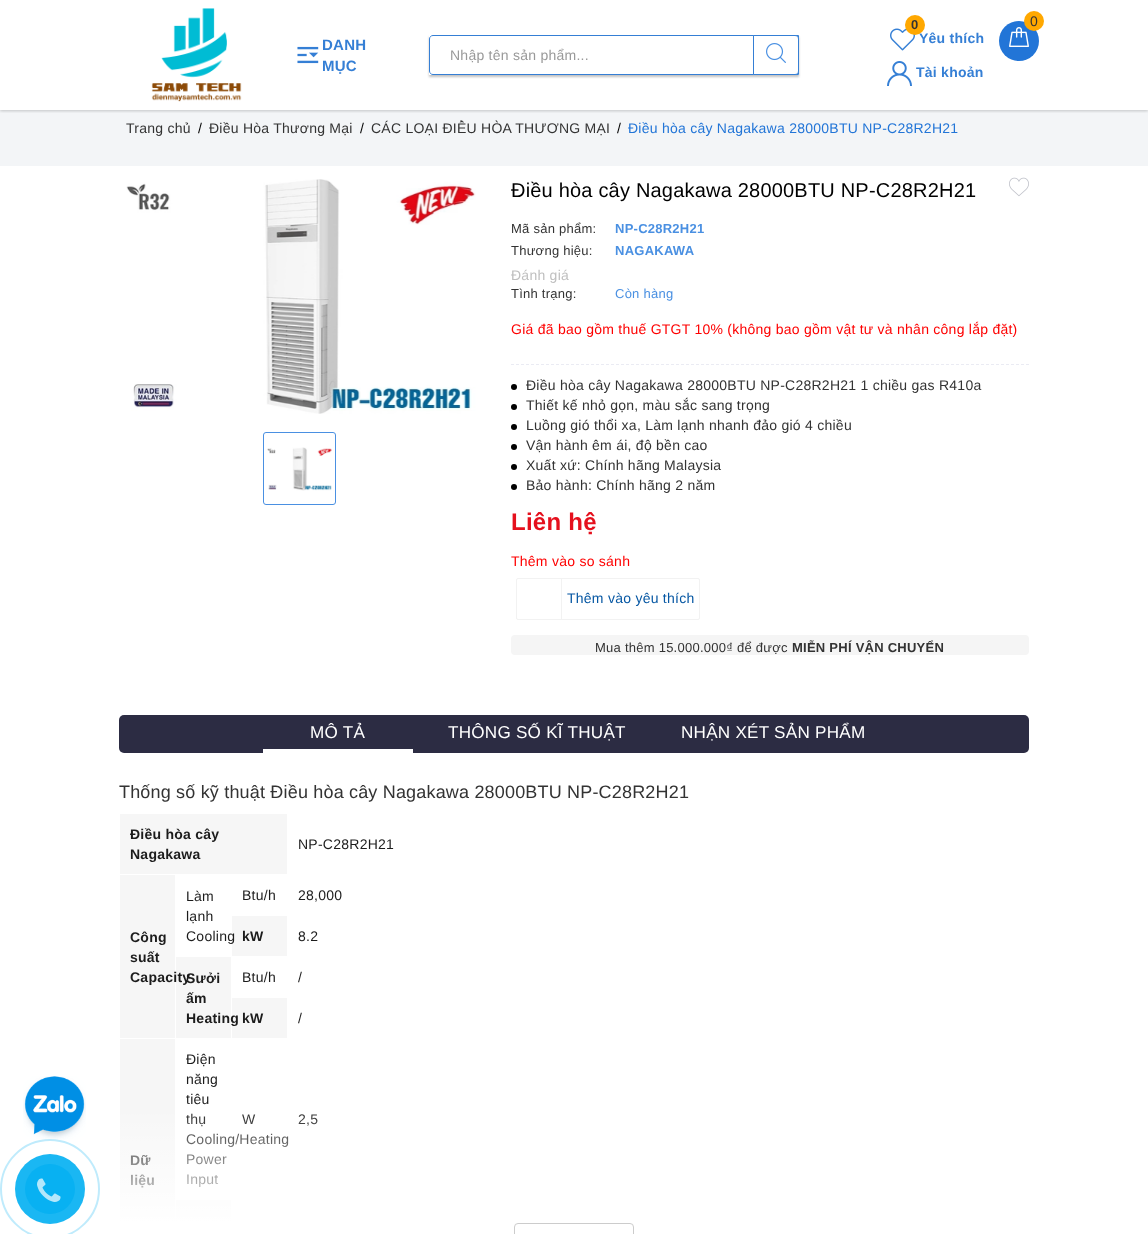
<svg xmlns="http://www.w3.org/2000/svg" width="1148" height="1234">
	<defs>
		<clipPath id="clip1"><rect x="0" y="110" width="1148" height="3" /></clipPath>
		<clipPath id="clip2"><path d="M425 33H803V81H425ZM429 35H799V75H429Z" clip-rule="evenodd" /></clipPath>
		<linearGradient id="g1" gradientUnits="userSpaceOnUse" x1="574" y1="1103" x2="574" y2="1223"><stop offset="0" stop-color="#FFFFFF" stop-opacity="0" /><stop offset="0.33" stop-color="#FFFFFF" stop-opacity="0.33" /><stop offset="0.83" stop-color="#FFFFFF" stop-opacity="0.8" /><stop offset="1" stop-color="#FFFFFF" /></linearGradient>
	</defs>
	<rect width="100%" height="100%" fill="#FFFFFF" />
	<rect x="0" y="110" width="1148" height="56" fill="#F3F5F7" />
	<g clip-path="url(#clip1)">
		<rect x="0" y="1" width="1148" height="110" fill="#000000" fill-opacity="0.2" filter="blur(1.5px)" />
	</g>
	<image x="151" y="8" width="91" height="94" href="assets/img1.png" />
	<text x="322" y="50" font-family="Liberation Sans" font-size="15" font-weight="700" letter-spacing="0.25" fill="#357FD5">DANH</text>
	<image x="297" y="46" width="22" height="18" href="assets/img2.png" />
	<text x="322" y="71" font-family="Liberation Sans" font-size="15" font-weight="700" letter-spacing="0.25" fill="#357FD5">MỤC</text>
	<g clip-path="url(#clip2)">
		<rect x="429" y="37" width="370" height="40" fill="#000000" fill-opacity="0.24" filter="blur(1px)" />
	</g>
	<path d="M433 35.5H798.5V74.5H433C431 74.5 429.5 73 429.5 71V39C429.5 37 431 35.5 433 35.5Z" fill="none" stroke="#357FD5" />
	<text x="450" y="60" font-family="Liberation Sans" font-size="14" letter-spacing="0.25" fill="#999999">Nhập tên sản phẩm...</text>
	<path d="M753.5 35.5H795C797 35.5 798.5 37 798.5 39V71C798.5 73 797 74.5 795 74.5H753.5Z" fill="#FFFFFF" stroke="#357FD5" />
	<image x="766" y="43" width="20" height="20" href="assets/img3.png" />
	<image x="890" y="28" width="25" height="23" href="assets/img4.png" />
	<text x="919" y="43" font-family="Liberation Sans" font-size="14" font-weight="700" letter-spacing="0.25" fill="#357FD5">Yêu thích</text>
	<circle cx="915" cy="25" r="10" fill="#FFA800" />
	<text x="911" y="29" font-family="Liberation Sans" font-size="13" font-weight="700" letter-spacing="0.25" fill="#333333">0</text>
	<circle cx="1019" cy="41" r="20" fill="#2275D7" />
	<image x="1009" y="27" width="20" height="20" href="assets/img5.png" />
	<circle cx="1034" cy="21" r="10" fill="#FFA800" />
	<text x="1030" y="26" font-family="Liberation Sans" font-size="14" letter-spacing="0.25" fill="#333333">0</text>
	<image x="887" y="61" width="25" height="25" href="assets/img6.png" />
	<text x="916" y="77" font-family="Liberation Sans" font-size="14" font-weight="700" letter-spacing="0.25" fill="#357FD5">Tài khoản</text>
	<text x="126" y="133" font-family="Liberation Sans" font-size="14" letter-spacing="0.25" fill="#333333">Trang chủ</text>
	<text x="198" y="133" font-family="Liberation Sans" font-size="14" letter-spacing="0.25" fill="#000000">/</text>
	<text x="209" y="133" font-family="Liberation Sans" font-size="14" letter-spacing="0.25" fill="#333333">Điều Hòa Thương Mại</text>
	<text x="360" y="133" font-family="Liberation Sans" font-size="14" letter-spacing="0.25" fill="#000000">/</text>
	<text x="371" y="133" font-family="Liberation Sans" font-size="14" letter-spacing="0.25" fill="#333333">CÁC LOẠI ĐIỀU HÒA THƯƠNG MẠI</text>
	<text x="617" y="133" font-family="Liberation Sans" font-size="14" letter-spacing="0.25" fill="#000000">/</text>
	<text x="628" y="133" font-family="Liberation Sans" font-size="14" letter-spacing="0.25" fill="#2275D7">Điều hòa cây Nagakawa 28000BTU NP-C28R2H21</text>
	<image x="23" y="1076" width="63" height="64" href="assets/img7.png" />
	<image x="126" y="179" width="350" height="235" href="assets/img8.png" />
	<rect x="263.5" y="432.5" width="72" height="72" rx="2.5" fill="none" stroke="#4A90E2" />
	<image x="267" y="447" width="65" height="44" href="assets/img9.png" />
	<text x="511" y="197" font-family="Liberation Sans" font-size="20" letter-spacing="0.2" fill="#000000">Điều hòa cây Nagakawa 28000BTU NP-C28R2H21</text>
	<image x="1009" y="177" width="20" height="20" href="assets/img10.png" />
	<text x="511" y="233" font-family="Liberation Sans" font-size="13" letter-spacing="0.25" fill="#333333">Mã sản phẩm:</text>
	<text x="615" y="233" font-family="Liberation Sans" font-size="13" font-weight="700" letter-spacing="0.25" fill="#4A90E2">NP-C28R2H21</text>
	<text x="511" y="255" font-family="Liberation Sans" font-size="13" letter-spacing="0.25" fill="#333333">Thương hiệu:</text>
	<text x="615" y="255" font-family="Liberation Sans" font-size="13" font-weight="700" letter-spacing="0.25" fill="#4A90E2">NAGAKAWA</text>
	<text x="511" y="280" font-family="Liberation Sans" font-size="14" letter-spacing="0.25" fill="#BFBFBF">Đánh giá</text>
	<path d="M511 364.5H1029" fill="none" stroke="#EAEBF3" stroke-dasharray="3 2" />
	<text x="511" y="298" font-family="Liberation Sans" font-size="13" letter-spacing="0.25" fill="#333333">Tình trạng:</text>
	<text x="615" y="298" font-family="Liberation Sans" font-size="13" letter-spacing="0.25" fill="#4A90E2">Còn hàng</text>
	<text x="511" y="334" font-family="Liberation Sans" font-size="14" letter-spacing="0.25" fill="#FE0000">Giá đã bao gồm thuế GTGT 10% (không bao gồm vật tư và nhân công lắp đặt)</text>
	<circle cx="514" cy="387" r="3" fill="#000000" />
	<text x="526" y="390" font-family="Liberation Sans" font-size="14" letter-spacing="0.25" fill="#333333">Điều hòa cây Nagakawa 28000BTU NP-C28R2H21 1 chiều gas R410a</text>
	<circle cx="514" cy="407" r="3" fill="#000000" />
	<text x="526" y="410" font-family="Liberation Sans" font-size="14" letter-spacing="0.25" fill="#333333">Thiết kế nhỏ gọn, màu sắc sang trọng</text>
	<circle cx="514" cy="427" r="3" fill="#000000" />
	<text x="526" y="430" font-family="Liberation Sans" font-size="14" letter-spacing="0.25" fill="#333333">Luồng gió thổi xa, Làm lạnh nhanh đảo gió 4 chiều</text>
	<circle cx="514" cy="447" r="3" fill="#000000" />
	<text x="526" y="450" font-family="Liberation Sans" font-size="14" letter-spacing="0.25" fill="#333333">Vận hành êm ái, độ bền cao</text>
	<circle cx="514" cy="467" r="3" fill="#000000" />
	<text x="526" y="470" font-family="Liberation Sans" font-size="14" letter-spacing="0.25" fill="#333333">Xuất xứ: Chính hãng Malaysia</text>
	<circle cx="514" cy="487" r="3" fill="#000000" />
	<text x="526" y="490" font-family="Liberation Sans" font-size="14" letter-spacing="0.25" fill="#333333">Bảo hành: Chính hãng 2 năm</text>
	<text x="511" y="530" font-family="Liberation Sans" font-size="24" font-weight="700" letter-spacing="0.25" fill="#E5101D">Liên hệ</text>
	<text x="511" y="566" font-family="Liberation Sans" font-size="14" letter-spacing="0.25" fill="#FE0000">Thêm vào so sánh</text>
	<rect x="516.5" y="578.5" width="183" height="41" rx="1.5" fill="none" stroke="#F2F2F2" />
	<rect x="561" y="579" width="1" height="40" fill="#F2F2F2" />
	<text x="567" y="603" font-family="Liberation Sans" font-size="14" letter-spacing="0.25" fill="#0657A3">Thêm vào yêu thích</text>
	<rect x="511" y="635" width="518" height="20" rx="4" fill="#F5F5F5" />
	<text x="595" y="652" font-family="Liberation Sans" font-size="13" letter-spacing="0.25" fill="#333333">Mua thêm 15.000.000₫ để được</text>
	<text x="792" y="652" font-family="Liberation Sans" font-size="13" font-weight="700" letter-spacing="0.25" fill="#333333">MIỄN PHÍ VẬN CHUYỂN</text>
	<rect x="119" y="715" width="910" height="38" rx="5" fill="#2C2C43" />
	<rect x="263" y="749" width="150" height="4" fill="#FFFFFF" />
	<g font-family="Liberation Sans" font-size="17.1" letter-spacing="0.25" fill="#FFFFFF">
		<text x="310" y="738">MÔ TẢ</text>
		<text x="448" y="738">THÔNG SỐ KĨ THUẬT</text>
		<text x="681" y="738">NHẬN XÉT SẢN PHẨM</text>
	</g>
	<text x="119" y="798" font-family="Liberation Sans" font-size="18" letter-spacing="0.18" fill="#333333">Thống số kỹ thuật Điều hòa cây Nagakawa 28000BTU NP-C28R2H21</text>
	<rect x="120" y="814" width="167" height="60" fill="#F6F6F6" />
	<g font-family="Liberation Sans" font-size="14" font-weight="700" letter-spacing="0.25" fill="#1C1C1C">
		<text x="130" y="839">Điều hòa cây</text>
		<text x="130" y="859">Nagakawa</text>
	</g>
	<g font-family="Liberation Sans" font-size="14" letter-spacing="0.25" fill="#1C1C1C">
		<text x="298" y="849">NP-C28R2H21</text>
		<text x="186" y="901">Làm</text>
		<text x="186" y="921">lạnh</text>
	</g>
	<rect x="232" y="916" width="55" height="40" fill="#F6F6F6" />
	<g font-family="Liberation Sans" font-size="14" letter-spacing="0.25" fill="#1C1C1C">
		<text x="186" y="941">Cooling</text>
		<text x="242" y="900">Btu/h</text>
		<text x="298" y="900">28,000</text>
	</g>
	<rect x="120" y="875" width="55" height="163" fill="#F6F6F6" />
	<g font-family="Liberation Sans" font-size="14" font-weight="700" letter-spacing="0.25" fill="#1C1C1C">
		<text x="130" y="942">Công</text>
		<text x="130" y="962">suất</text>
	</g>
	<rect x="176" y="957" width="55" height="81" fill="#F6F6F6" />
	<g font-family="Liberation Sans" font-size="14" font-weight="700" letter-spacing="0.25" fill="#1C1C1C">
		<text x="130" y="982">Capacity</text>
		<text x="242" y="941">kW</text>
	</g>
	<text x="298" y="941" font-family="Liberation Sans" font-size="14" letter-spacing="0.25" fill="#1C1C1C">8.2</text>
	<g font-family="Liberation Sans" font-size="14" font-weight="700" letter-spacing="0.25" fill="#1C1C1C">
		<text x="186" y="983">Sưởi</text>
		<text x="186" y="1003">ấm</text>
	</g>
	<rect x="232" y="998" width="55" height="40" fill="#F6F6F6" />
	<text x="186" y="1023" font-family="Liberation Sans" font-size="14" font-weight="700" letter-spacing="0.25" fill="#1C1C1C">Heating</text>
	<g font-family="Liberation Sans" font-size="14" letter-spacing="0.25" fill="#1C1C1C">
		<text x="242" y="982">Btu/h</text>
		<text x="298" y="982">/</text>
	</g>
	<text x="242" y="1023" font-family="Liberation Sans" font-size="14" font-weight="700" letter-spacing="0.25" fill="#1C1C1C">kW</text>
	<g font-family="Liberation Sans" font-size="14" letter-spacing="0.25" fill="#1C1C1C">
		<text x="298" y="1023">/</text>
		<text x="186" y="1064">Điện</text>
		<text x="186" y="1084">năng</text>
		<text x="186" y="1104">tiêu</text>
		<text x="186" y="1124">thụ</text>
		<text x="186" y="1144">Cooling/Heating</text>
		<text x="186" y="1164">Power</text>
		<text x="186" y="1184">Input</text>
		<text x="242" y="1124">W</text>
		<text x="298" y="1124">2,5</text>
	</g>
	<rect x="120" y="1039" width="55" height="183" fill="#F6F6F6" />
	<g font-family="Liberation Sans" font-size="14" font-weight="700" letter-spacing="0.25" fill="#1C1C1C">
		<text x="130" y="1165">Dữ</text>
		<text x="130" y="1185">liệu</text>
	</g>
	<rect x="176" y="1200" width="55" height="22" fill="#F6F6F6" />
	<rect x="120" y="1114" width="198" height="108" fill="url(#g1)" />
	<rect x="514.5" y="1223.5" width="119" height="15" rx="3.5" fill="none" stroke="#CCCCCC" />
	<circle cx="50" cy="1189" r="49" fill="none" stroke="#BFEBFC" stroke-width="2" />
	<circle cx="50" cy="1189" r="35" fill="#1AB7F3" />
	<circle cx="50" cy="1189" r="25" fill="#08B1F2" />
	<image x="37" y="1178" width="24" height="24" href="assets/img11.png" />
</svg>
